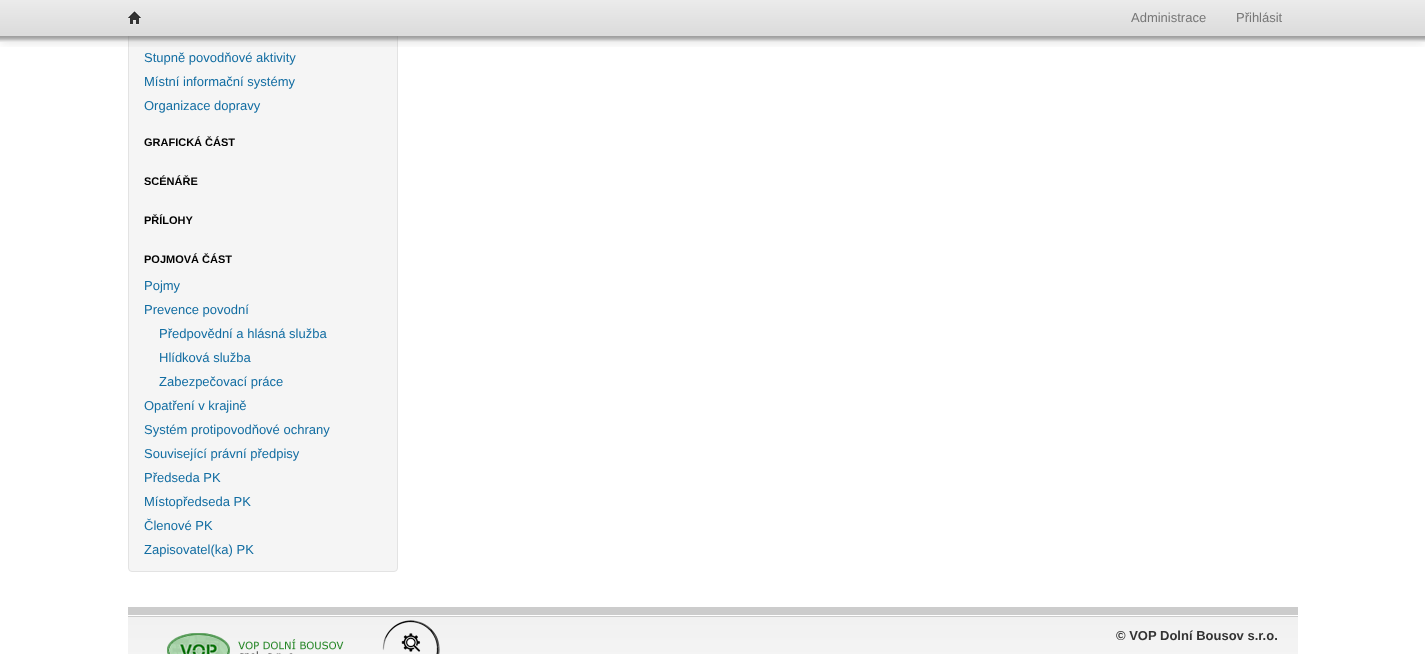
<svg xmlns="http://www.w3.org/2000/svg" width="1425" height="654">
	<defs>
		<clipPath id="clip1"><rect x="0" y="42" width="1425" height="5" /></clipPath>
	</defs>
	<rect width="100%" height="100%" fill="#FFFFFF" />
	<rect x="128.5" y="-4.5" width="269" height="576" rx="3.5" fill="#F5F5F5" stroke="#E3E3E3" />
	<g clip-path="url(#clip1)">
		<rect x="0" y="1" width="1425" height="42" fill="#000000" fill-opacity="0.1" filter="blur(5px)" />
	</g>
	<image x="0" y="0" width="1425" height="42" href="assets/img1.png" />
	<image x="128" y="11" width="13" height="14" href="assets/img2.png" />
	<g font-family="Liberation Sans" font-size="13" fill="#777777">
		<text x="1131" y="22">Administrace</text>
		<text x="1236" y="22">Přihlásit</text>
	</g>
	<g font-family="Liberation Sans" font-size="13" fill="#126DA2">
		<text x="144" y="62">Stupně povodňové aktivity</text>
		<text x="144" y="86">Místní informační systémy</text>
		<text x="144" y="110">Organizace dopravy</text>
	</g>
	<g font-family="Liberation Sans" font-size="11" font-weight="700" fill="#000000">
		<text x="144" y="146">GRAFICKÁ ČÁST</text>
		<text x="144" y="185">SCÉNÁŘE</text>
		<text x="144" y="224">PŘÍLOHY</text>
		<text x="144" y="263">POJMOVÁ ČÁST</text>
	</g>
	<g font-family="Liberation Sans" font-size="13" fill="#126DA2">
		<text x="144" y="290">Pojmy</text>
		<text x="144" y="314">Prevence povodní</text>
		<text x="159" y="338">Předpovědní a hlásná služba</text>
		<text x="159" y="362">Hlídková služba</text>
		<text x="159" y="386">Zabezpečovací práce</text>
		<text x="144" y="410">Opatření v krajině</text>
		<text x="144" y="434">Systém protipovodňové ochrany</text>
		<text x="144" y="458">Související právní předpisy</text>
		<text x="144" y="482">Předseda PK</text>
		<text x="144" y="506">Místopředseda PK</text>
		<text x="144" y="530">Členové PK</text>
		<text x="144" y="554">Zapisovatel(ka) PK</text>
	</g>
	<image x="128" y="607" width="1170" height="47" href="assets/img3.png" />
	<image x="167" y="633" width="177" height="21" href="assets/img4.png" />
	<image x="382" y="620" width="58" height="34" href="assets/img5.png" />
	<text x="1116" y="640" font-family="Liberation Sans" font-size="13" font-weight="700" fill="#333333">© VOP Dolní Bousov s.r.o.</text>
</svg>
